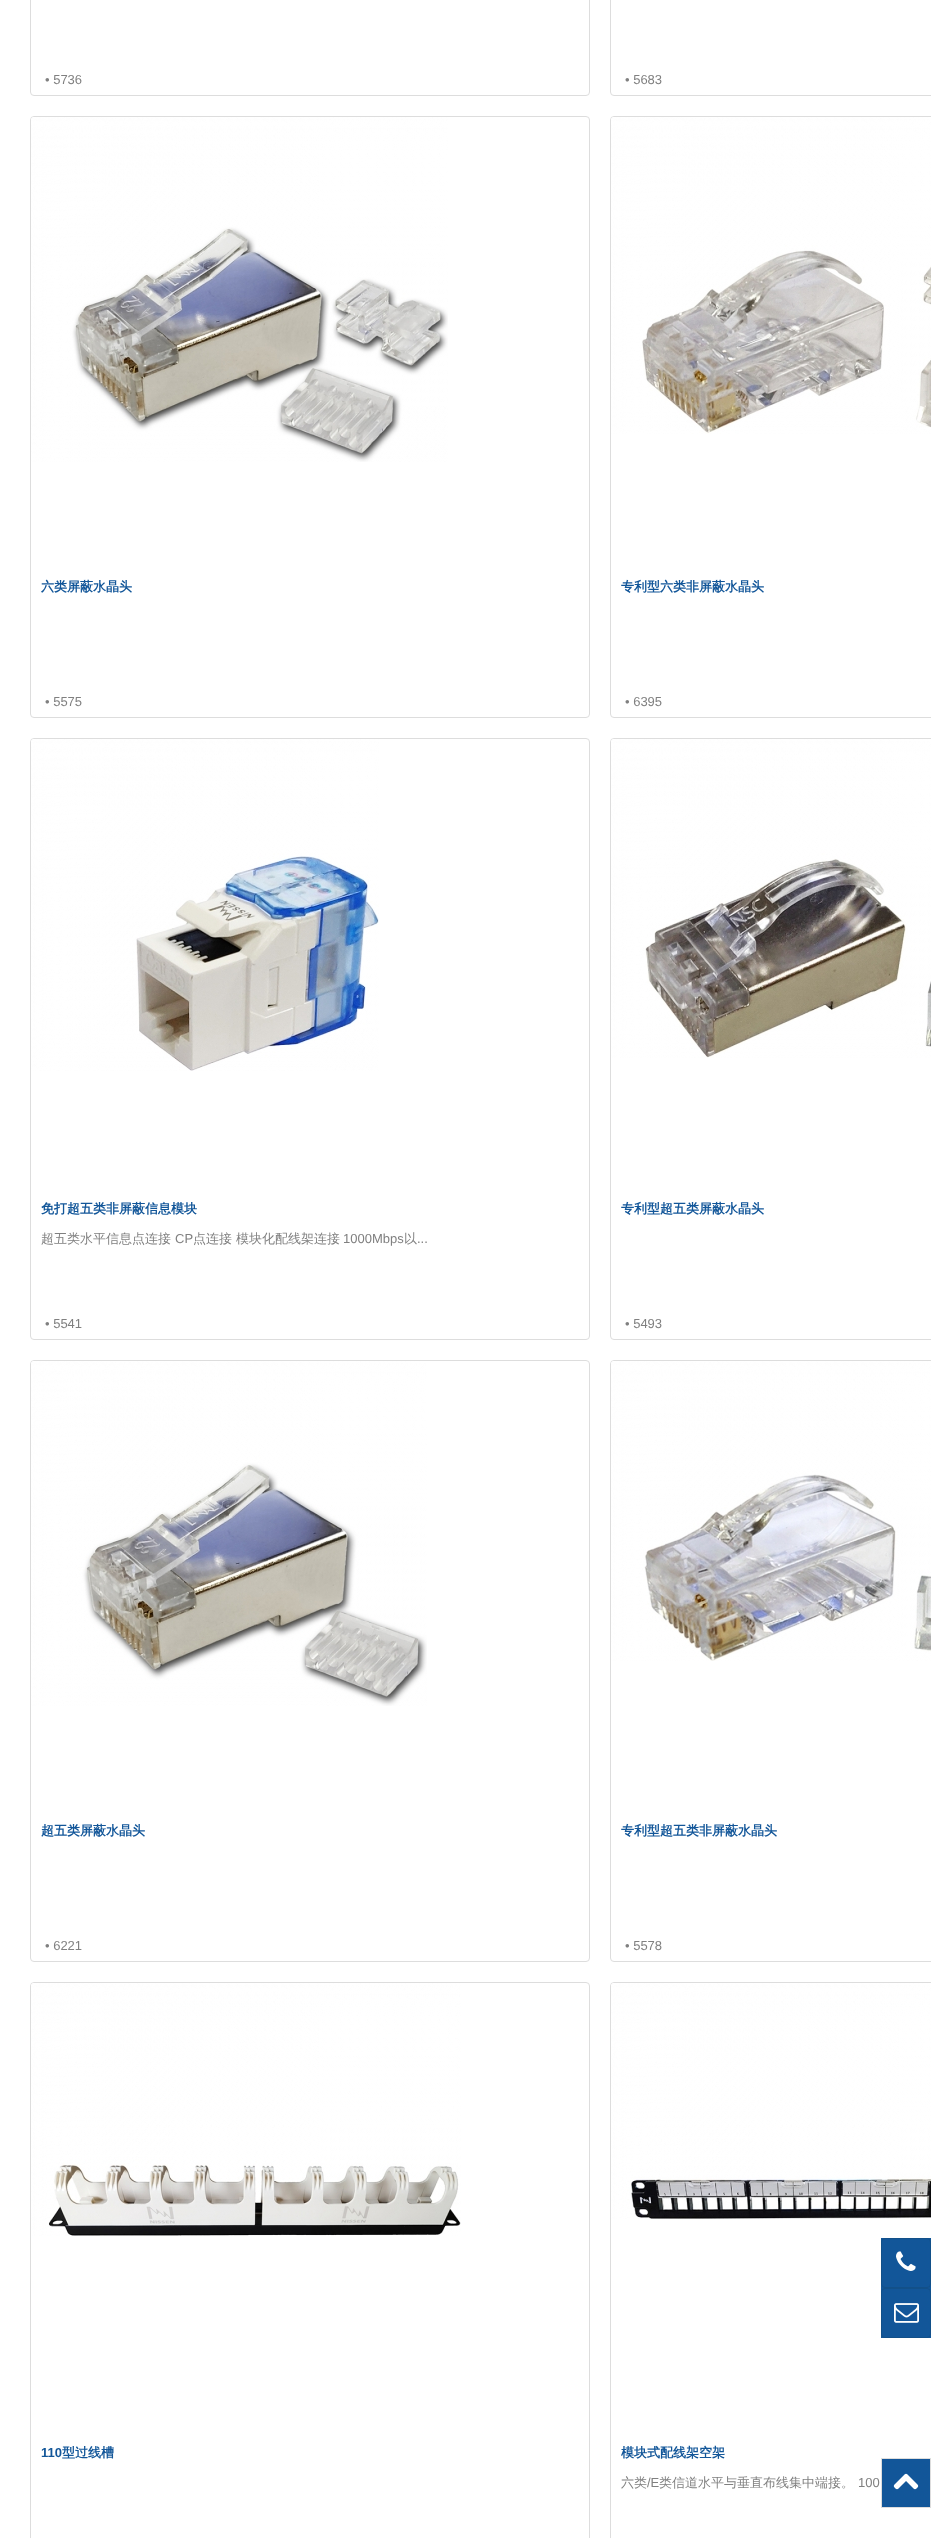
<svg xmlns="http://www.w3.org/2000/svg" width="931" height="2538">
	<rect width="100%" height="100%" fill="#FFFFFF" />
	<rect x="30.5" y="-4.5" width="559" height="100" rx="3.5" fill="none" stroke="#DDDDDD" />
	<text x="45" y="84" font-family="Liberation Sans" font-size="13" fill="#808080">• 5736</text>
	<rect x="610.5" y="-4.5" width="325" height="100" rx="3.5" fill="none" stroke="#DDDDDD" />
	<text x="625" y="84" font-family="Liberation Sans" font-size="13" fill="#808080">• 5683</text>
	<rect x="30.5" y="116.5" width="559" height="601" rx="3.5" fill="none" stroke="#DDDDDD" />
	<image x="31" y="117" width="417" height="345" href="assets/img1.png" />
	<text x="41" y="591" font-family="WenQuanYi Zen Hei" font-size="13" font-weight="700" fill="#125699">六类屏蔽水晶头</text>
	<text x="45" y="706" font-family="Liberation Sans" font-size="13" fill="#808080">• 5575</text>
	<rect x="610.5" y="116.5" width="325" height="601" rx="3.5" fill="none" stroke="#DDDDDD" />
	<image x="611" y="117" width="320" height="317" href="assets/img2.png" />
	<text x="621" y="591" font-family="WenQuanYi Zen Hei" font-size="13" font-weight="700" fill="#125699">专利型六类非屏蔽水晶头</text>
	<text x="625" y="706" font-family="Liberation Sans" font-size="13" fill="#808080">• 6395</text>
	<rect x="30.5" y="738.5" width="559" height="601" rx="3.5" fill="none" stroke="#DDDDDD" />
	<image x="31" y="739" width="348" height="332" href="assets/img3.png" />
	<text x="41" y="1213" font-family="WenQuanYi Zen Hei" font-size="13" font-weight="700" fill="#125699">免打超五类非屏蔽信息模块</text>
	<text x="41" y="1243" font-family="WenQuanYi Zen Hei" font-size="13" font-weight="500" fill="#808080">超五类水平信息点连接</text>
	<text x="175" y="1243" font-family="Liberation Sans" font-size="13" fill="#808080">CP</text>
	<text x="193" y="1243" font-family="WenQuanYi Zen Hei" font-size="13" font-weight="500" fill="#808080">点连接 模块化配线架连接</text>
	<text x="343" y="1243" font-family="Liberation Sans" font-size="13" fill="#808080">1000Mbps</text>
	<text x="404" y="1243" font-family="WenQuanYi Zen Hei" font-size="13" font-weight="500" fill="#808080">以</text>
	<g font-family="Liberation Sans" font-size="13" fill="#808080">
		<text x="417" y="1243">...</text>
		<text x="45" y="1328">• 5541</text>
	</g>
	<rect x="610.5" y="738.5" width="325" height="601" rx="3.5" fill="none" stroke="#DDDDDD" />
	<image x="611" y="739" width="320" height="319" href="assets/img4.png" />
	<text x="621" y="1213" font-family="WenQuanYi Zen Hei" font-size="13" font-weight="700" fill="#125699">专利型超五类屏蔽水晶头</text>
	<text x="625" y="1328" font-family="Liberation Sans" font-size="13" fill="#808080">• 5493</text>
	<rect x="30.5" y="1360.5" width="559" height="601" rx="3.5" fill="none" stroke="#DDDDDD" />
	<image x="31" y="1361" width="396" height="345" href="assets/img5.png" />
	<text x="41" y="1835" font-family="WenQuanYi Zen Hei" font-size="13" font-weight="700" fill="#125699">超五类屏蔽水晶头</text>
	<text x="45" y="1950" font-family="Liberation Sans" font-size="13" fill="#808080">• 6221</text>
	<rect x="610.5" y="1360.5" width="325" height="601" rx="3.5" fill="none" stroke="#DDDDDD" />
	<image x="611" y="1361" width="320" height="300" href="assets/img6.png" />
	<text x="621" y="1835" font-family="WenQuanYi Zen Hei" font-size="13" font-weight="700" fill="#125699">专利型超五类非屏蔽水晶头</text>
	<text x="625" y="1950" font-family="Liberation Sans" font-size="13" fill="#808080">• 5578</text>
	<rect x="30.5" y="1982.5" width="559" height="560" rx="3.5" fill="none" stroke="#DDDDDD" />
	<image x="31" y="1983" width="430" height="253" href="assets/img7.png" />
	<text x="41" y="2457" font-family="Liberation Sans" font-size="13" font-weight="700" fill="#125699">110</text>
	<text x="62" y="2457" font-family="WenQuanYi Zen Hei" font-size="13" font-weight="700" fill="#125699">型过线槽</text>
	<rect x="610.5" y="1982.5" width="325" height="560" rx="3.5" fill="none" stroke="#DDDDDD" />
	<image x="611" y="1983" width="320" height="236" href="assets/img8.png" />
	<text x="621" y="2457" font-family="WenQuanYi Zen Hei" font-size="13" font-weight="700" fill="#125699">模块式配线架空架</text>
	<text x="621" y="2487" font-family="WenQuanYi Zen Hei" font-size="13" font-weight="500" fill="#808080">六类</text>
	<text x="647" y="2487" font-family="Liberation Sans" font-size="13" fill="#808080">/E</text>
	<text x="659" y="2487" font-family="WenQuanYi Zen Hei" font-size="13" font-weight="500" fill="#808080">类信道水平与垂直布线集中端接。</text>
	<text x="858" y="2487" font-family="Liberation Sans" font-size="13" fill="#808080">100</text>
	<rect x="881" y="2238" width="50" height="100" fill="#125699" />
	<rect x="881.5" y="2238.5" width="49" height="49" rx="3.5" fill="none" stroke="#125089" />
	<image x="896" y="2251" width="20" height="20" href="assets/img9.png" />
	<rect x="881.5" y="2288.5" width="49" height="49" rx="3.5" fill="none" stroke="#125089" />
	<image x="894" y="2303" width="25" height="20" href="assets/img10.png" />
	<rect x="881.5" y="2458.5" width="49" height="49" fill="#125699" stroke="#DDDDDD" />
	<image x="893" y="2473" width="26" height="17" href="assets/img11.png" />
</svg>
